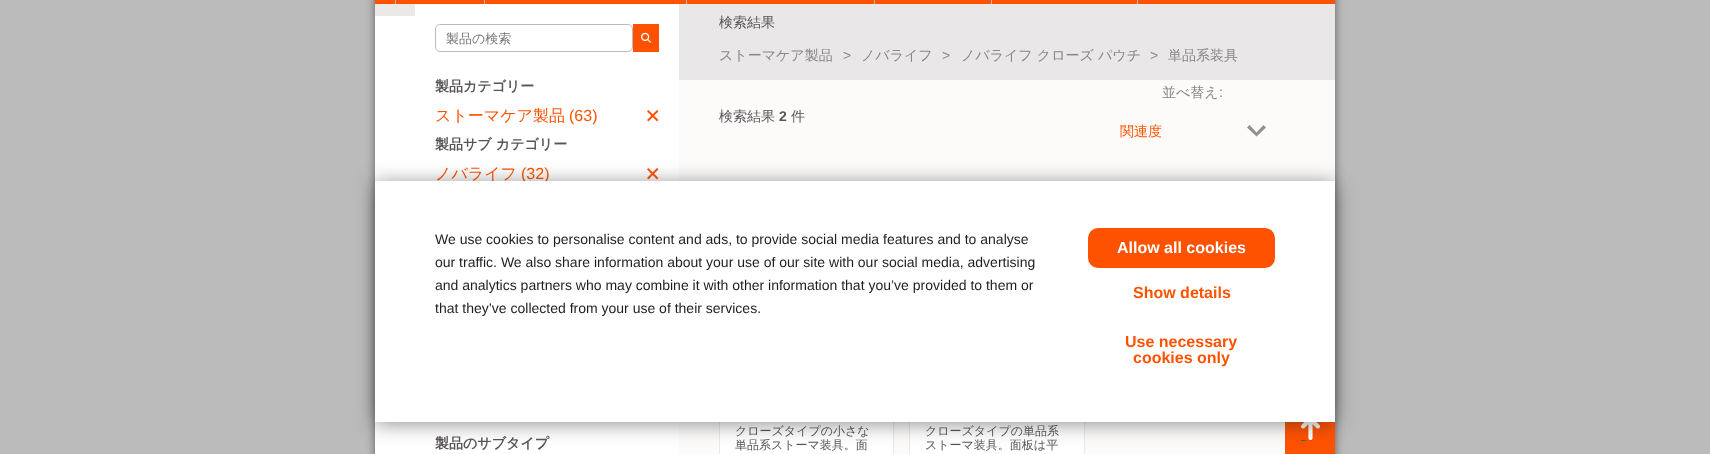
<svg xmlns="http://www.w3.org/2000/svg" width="1710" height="454">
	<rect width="100%" height="100%" fill="#BCBBBC" />
	<rect x="375" y="-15" width="960" height="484" fill="#242424" fill-opacity="0.6" filter="blur(5px)" />
	<rect x="375" y="16" width="40" height="438" fill="#FFFFFF" />
	<rect x="375" y="0" width="960" height="4" fill="#FF5200" />
	<rect x="395" y="0" width="1" height="4" fill="#BCBBBC" />
	<rect x="484" y="0" width="1" height="4" fill="#BCBBBC" />
	<rect x="686" y="0" width="1" height="4" fill="#BCBBBC" />
	<rect x="874" y="0" width="1" height="4" fill="#BCBBBC" />
	<rect x="1137" y="0" width="1" height="4" fill="#BCBBBC" />
	<rect x="991" y="0" width="1" height="4" fill="#BCBBBC" />
	<rect x="375" y="4" width="40" height="12" fill="#EBE9E8" />
	<rect x="415" y="4" width="264" height="450" fill="#FFFFFF" />
	<rect x="435.5" y="24.5" width="197" height="27" rx="4.5" fill="none" stroke="#BCBBBC" />
	<text x="446" y="43" font-family="WenQuanYi Zen Hei" font-size="13" font-weight="500" fill="#757575">製品の検索</text>
	<rect x="633" y="24" width="26" height="28" fill="#FF5200" />
	<image x="641" y="32" width="10" height="11" href="assets/img1.png" />
	<text x="435" y="91" font-family="WenQuanYi Zen Hei" font-size="14" font-weight="700" fill="#585458">製品カテゴリー</text>
	<text x="435" y="121" font-family="WenQuanYi Zen Hei" font-size="16" font-weight="500" fill="#FF5200">ストーマケア製品</text>
	<text x="569" y="121" font-family="Liberation Sans" font-size="16" fill="#FF5200">(63)</text>
	<image x="647" y="110" width="12" height="12" href="assets/img2.png" />
	<text x="435" y="149" font-family="WenQuanYi Zen Hei" font-size="14" font-weight="700" fill="#585458">製品サブ カテゴリー</text>
	<text x="435" y="179" font-family="WenQuanYi Zen Hei" font-size="16" font-weight="500" fill="#FF5200">ノバライフ</text>
	<text x="521" y="179" font-family="Liberation Sans" font-size="16" fill="#FF5200">(32)</text>
	<image x="647" y="168" width="12" height="12" href="assets/img2.png" />
	<text x="435" y="448" font-family="WenQuanYi Zen Hei" font-size="14" font-weight="700" fill="#585458">製品のサブタイプ</text>
	<rect x="679" y="4" width="656" height="76" fill="#E9E7E7" />
	<text x="719" y="27" font-family="WenQuanYi Zen Hei" font-size="14" font-weight="500" fill="#585458">検索結果</text>
	<text x="719" y="60" font-family="WenQuanYi Zen Hei" font-size="14" font-weight="500" fill="#878785">ストーマケア製品</text>
	<text x="843" y="60" font-family="Liberation Sans" font-size="14" fill="#878785">&gt;</text>
	<text x="861" y="60" font-family="WenQuanYi Zen Hei" font-size="14" font-weight="500" fill="#878785">ノバライフ</text>
	<text x="942" y="60" font-family="Liberation Sans" font-size="14" fill="#878785">&gt;</text>
	<text x="961" y="60" font-family="WenQuanYi Zen Hei" font-size="14" font-weight="500" fill="#878785">ノバライフ クローズ パウチ</text>
	<text x="1150" y="60" font-family="Liberation Sans" font-size="14" fill="#878785">&gt;</text>
	<text x="1168" y="60" font-family="WenQuanYi Zen Hei" font-size="14" font-weight="500" fill="#878785">単品系装具</text>
	<rect x="679" y="80" width="656" height="73" fill="#FCFBF9" />
	<text x="719" y="121" font-family="WenQuanYi Zen Hei" font-size="14" font-weight="500" fill="#585458">検索結果</text>
	<text x="779" y="121" font-family="Liberation Sans" font-size="14" font-weight="700" fill="#585458">2</text>
	<text x="791" y="121" font-family="WenQuanYi Zen Hei" font-size="14" font-weight="500" fill="#585458">件</text>
	<text x="1162" y="97" font-family="WenQuanYi Zen Hei" font-size="14" font-weight="500" fill="#878785">並べ替え</text>
	<text x="1219" y="97" font-family="Liberation Sans" font-size="14" fill="#878785">:</text>
	<path d="M1249.5 125L1247 127.5L1256.5 136.5L1266 127.5L1263.5 125L1256.5 132.5Z" fill="#919191" />
	<text x="1120" y="136" font-family="WenQuanYi Zen Hei" font-size="14" font-weight="500" fill="#FF5200">関連度</text>
	<rect x="679" y="153" width="656" height="301" fill="#FCFBF9" />
	<rect x="720" y="422" width="173" height="32" fill="#FFFFFF" />
	<rect x="719.5" y="183.5" width="174" height="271" fill="none" stroke="#E9E7E7" />
	<g font-family="WenQuanYi Zen Hei" font-size="12" font-weight="500" fill="#585458">
		<text x="735" y="435">クローズタイプの小さな</text>
		<text x="735" y="449">単品系ストーマ装具。面</text>
	</g>
	<rect x="910" y="422" width="174" height="32" fill="#FFFFFF" />
	<rect x="909.5" y="183.5" width="175" height="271" fill="none" stroke="#E9E7E7" />
	<g font-family="WenQuanYi Zen Hei" font-size="12" font-weight="500" fill="#585458">
		<text x="925" y="435">クローズタイプの単品系</text>
		<text x="925" y="449">ストーマ装具。面板は平</text>
	</g>
	<rect x="1285" y="422" width="50" height="32" fill="#FF5200" />
	<image x="1301" y="422" width="19" height="19" href="assets/img3.png" />
	<rect x="375" y="183" width="960" height="241" fill="#212121" fill-opacity="0.5" filter="blur(10px)" />
	<rect x="375" y="181" width="960" height="241" fill="#FFFFFF" />
	<g font-family="Liberation Sans" font-size="14" fill="#1E1E1E">
		<text x="435" y="244">We use cookies to personalise content and ads, to provide social media features and to analyse</text>
		<text x="435" y="267">our traffic. We also share information about your use of our site with our social media, advertising</text>
		<text x="435" y="290">and analytics partners who may combine it with other information that you’ve provided to them or</text>
		<text x="435" y="313">that they’ve collected from your use of their services.</text>
	</g>
	<rect x="1088" y="228" width="187" height="40" rx="10" fill="#FF5200" />
	<text x="1117" y="253" font-family="Liberation Sans" font-size="16" font-weight="700" fill="#FFFFFF">Allow all cookies</text>
	<g font-family="Liberation Sans" font-size="16" font-weight="700" fill="#FF5200">
		<text x="1133" y="298">Show details</text>
		<text x="1125" y="347">Use necessary</text>
		<text x="1133" y="363">cookies only</text>
	</g>
</svg>
